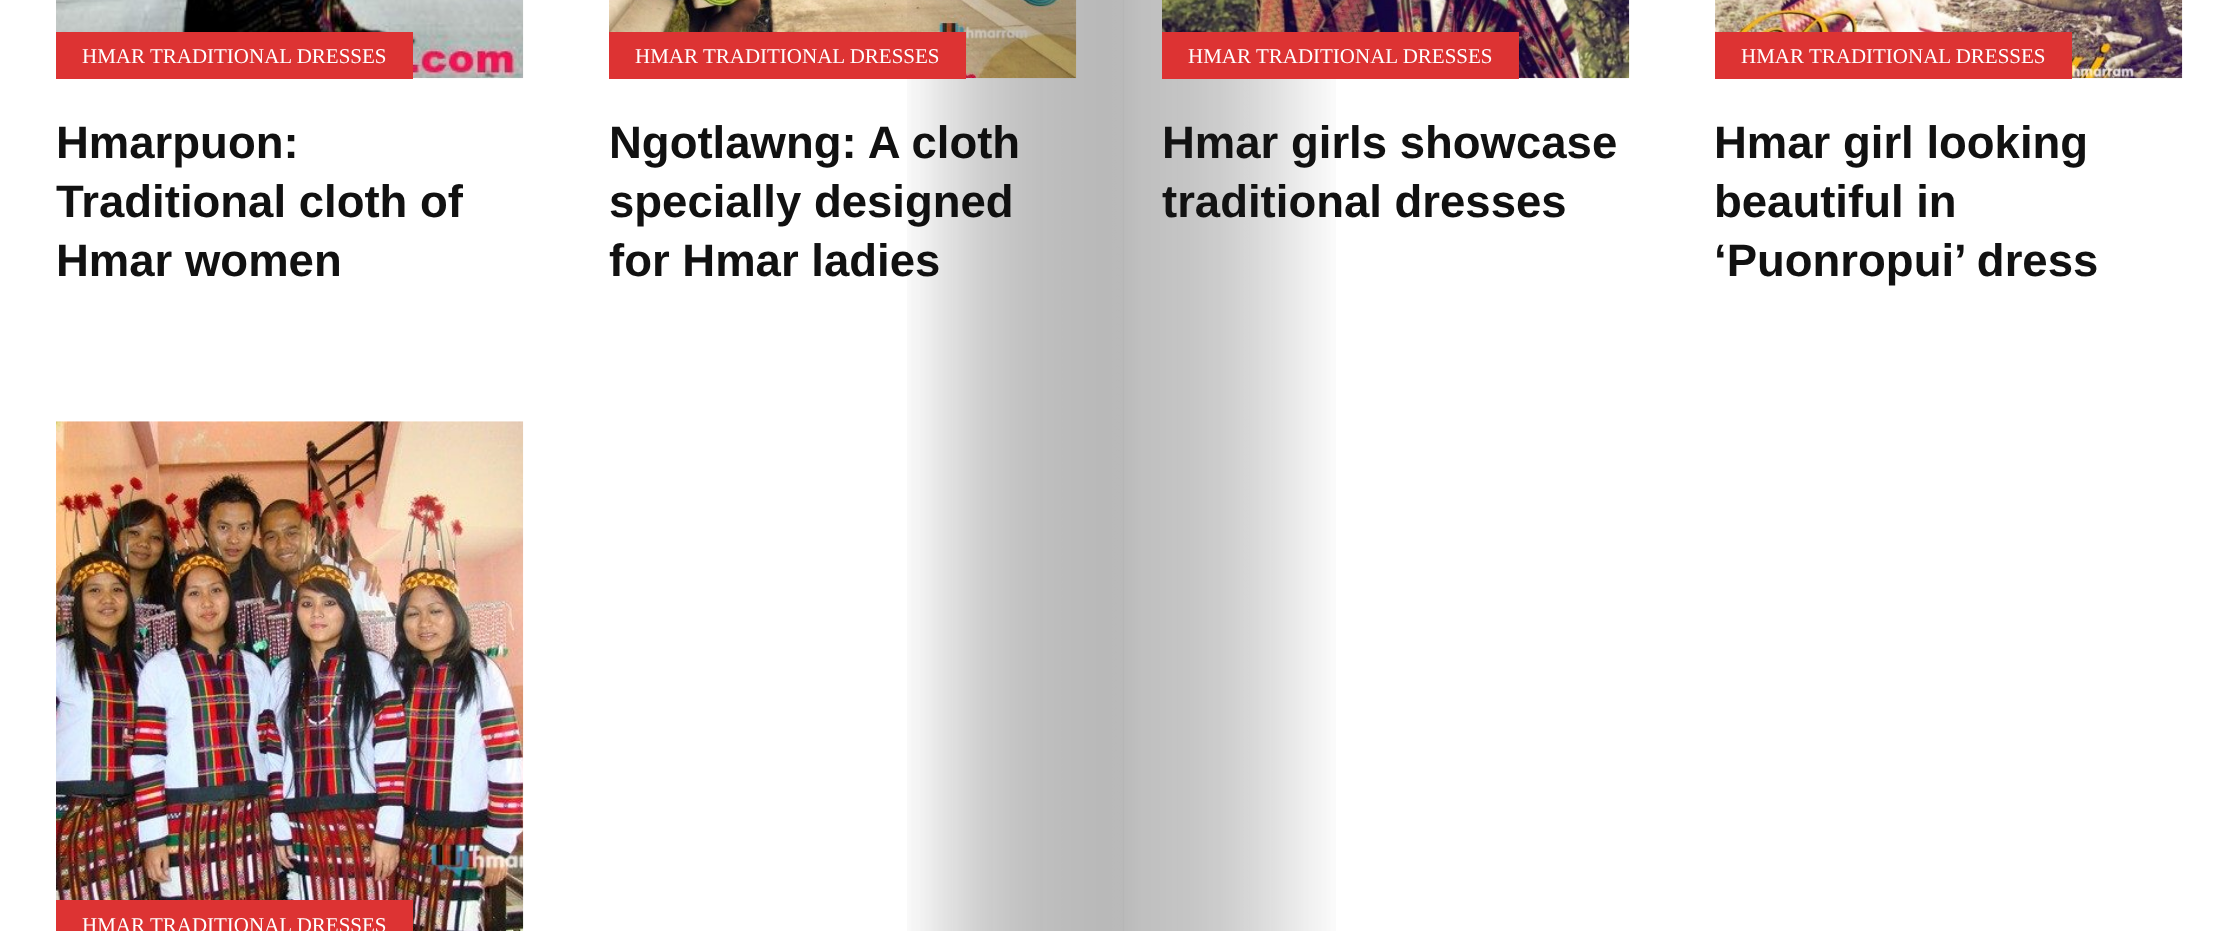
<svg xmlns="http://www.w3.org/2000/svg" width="2238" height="931">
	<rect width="100%" height="100%" fill="#FFFFFF" />
	<image x="609" y="0" width="468" height="79" href="assets/img3.png" />
	<g font-family="Liberation Sans" font-size="45.5" font-weight="700" fill="#111111">
		<text x="609" y="158">Ngotlawng: A cloth</text>
		<text x="609" y="217">specially designed</text>
		<text x="609" y="276">for Hmar ladies</text>
	</g>
	<image x="1162" y="0" width="468" height="79" href="assets/img4.png" />
	<g font-family="Liberation Sans" font-size="45.5" font-weight="700" fill="#111111">
		<text x="1162" y="158">Hmar girls showcase</text>
		<text x="1162" y="217">traditional dresses</text>
	</g>
	<image x="907" y="0" width="429" height="931" href="assets/img1.png" />
	<image x="56" y="0" width="468" height="79" href="assets/img2.png" />
	<rect x="56" y="32" width="357" height="47" fill="#DD3333" />
	<text x="82" y="63" font-family="Liberation Serif" font-size="21" fill="#FFFFFF">HMAR TRADITIONAL DRESSES</text>
	<g font-family="Liberation Sans" font-size="45.5" font-weight="700" fill="#111111">
		<text x="56" y="158">Hmarpuon:</text>
		<text x="56" y="217">Traditional cloth of</text>
		<text x="56" y="276">Hmar women</text>
	</g>
	<rect x="609" y="32" width="357" height="47" fill="#DD3333" />
	<text x="635" y="63" font-family="Liberation Serif" font-size="21" fill="#FFFFFF">HMAR TRADITIONAL DRESSES</text>
	<rect x="1162" y="32" width="357" height="47" fill="#DD3333" />
	<text x="1188" y="63" font-family="Liberation Serif" font-size="21" fill="#FFFFFF">HMAR TRADITIONAL DRESSES</text>
	<image x="1715" y="0" width="468" height="79" href="assets/img5.png" />
	<rect x="1715" y="32" width="357" height="47" fill="#DD3333" />
	<text x="1741" y="63" font-family="Liberation Serif" font-size="21" fill="#FFFFFF">HMAR TRADITIONAL DRESSES</text>
	<g font-family="Liberation Sans" font-size="45.5" font-weight="700" fill="#111111">
		<text x="1714" y="158">Hmar girl looking</text>
		<text x="1714" y="217">beautiful in</text>
		<text x="1714" y="276">‘Puonropui’ dress</text>
	</g>
	<image x="56" y="421" width="468" height="510" href="assets/img6.png" />
	<rect x="56" y="900" width="357" height="31" fill="#DD3333" />
	<text x="82" y="932" font-family="Liberation Serif" font-size="21" fill="#FFFFFF">HMAR TRADITIONAL DRESSES</text>
</svg>
